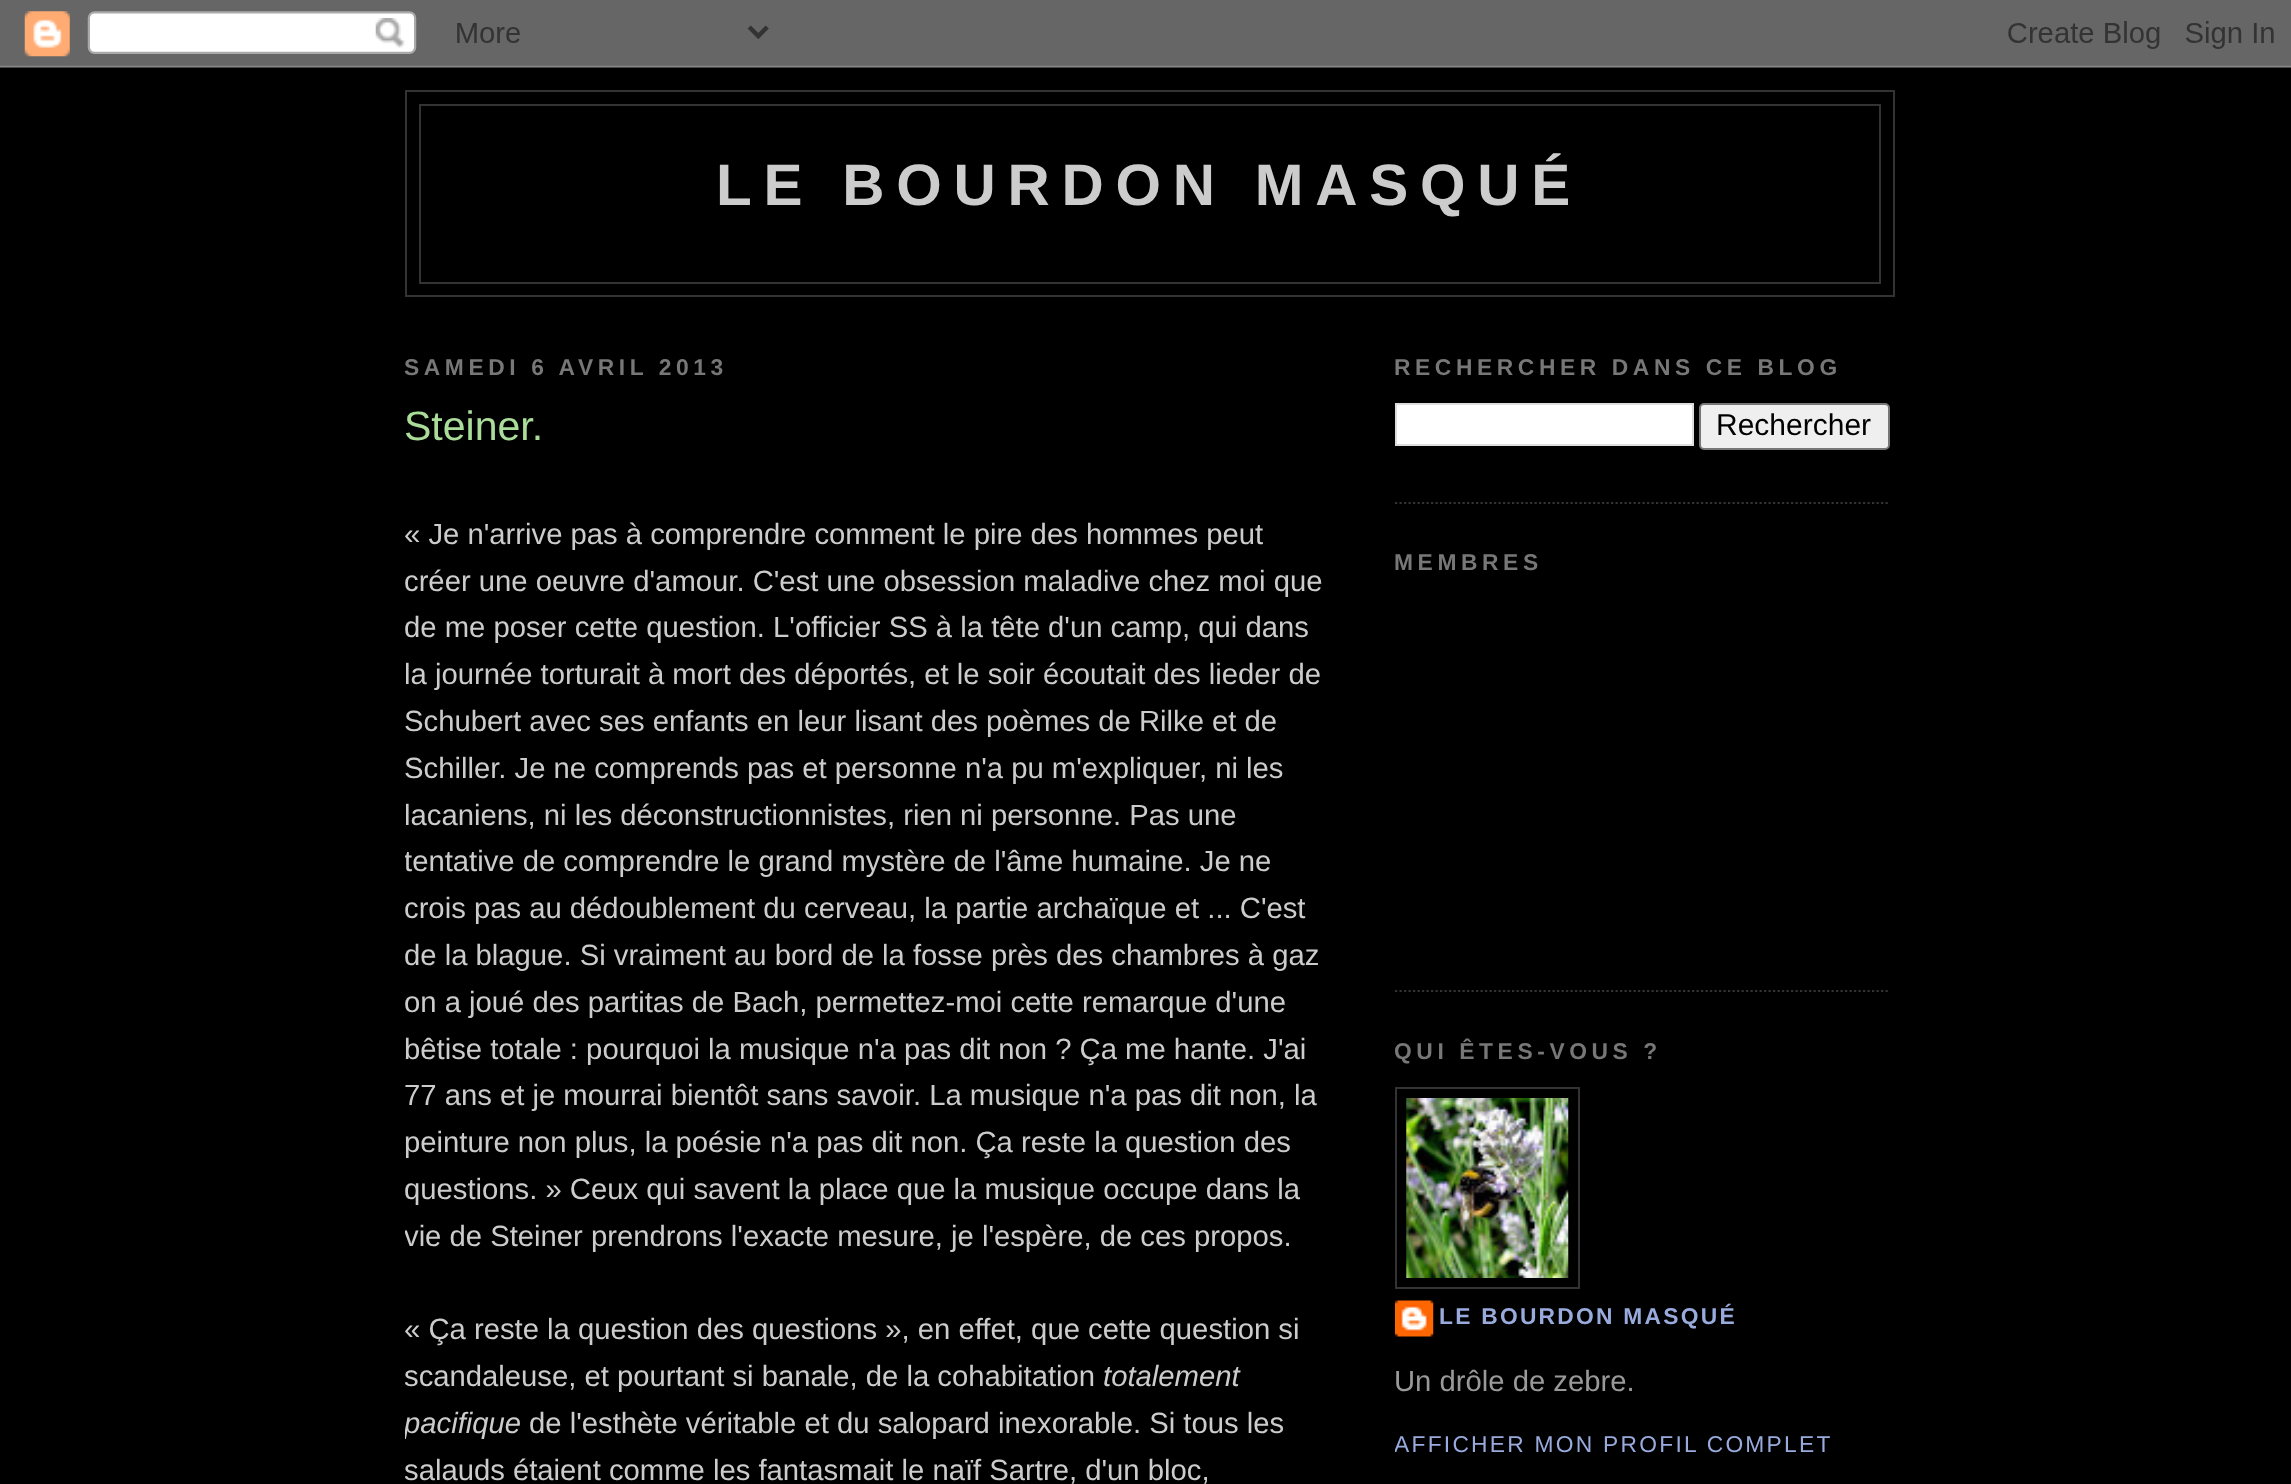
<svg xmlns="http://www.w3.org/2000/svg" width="2291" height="1484">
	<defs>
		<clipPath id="clip1"><rect x="405" y="320" width="923" height="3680" /></clipPath>
		<clipPath id="clip2"><rect x="1395" y="320" width="495" height="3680" /></clipPath>
	</defs>
	<rect width="100%" height="100%" fill="#000000" />
	<image x="0" y="0" width="2291" height="68" href="assets/img1.png" />
	<rect x="406" y="91" width="1488" height="205" fill="none" stroke="#333333" stroke-width="2" />
	<rect x="420" y="105" width="1460" height="178" fill="none" stroke="#333333" stroke-width="2" />
	<text x="716" y="205" font-family="Liberation Sans" font-size="58.5" font-weight="700" letter-spacing="11.75" fill="#CCCCCC">LE BOURDON MASQUÉ</text>
	<text x="404" y="375" font-family="Liberation Sans" font-size="22.8" font-weight="700" letter-spacing="4.6" fill="#777777">SAMEDI 6 AVRIL 2013</text>
	<text x="404" y="440" font-family="Liberation Sans" font-size="41" fill="#AADD99">Steiner.</text>
	<g font-family="Liberation Sans" font-size="29.25" fill="#CCCCCC">
		<text x="404" y="544">« Je n'arrive pas à comprendre comment le pire des hommes peut</text>
		<text x="404" y="591">créer une oeuvre d'amour. C'est une obsession maladive chez moi que</text>
		<text x="404" y="637">de me poser cette question. L'officier SS à la tête d'un camp, qui dans</text>
		<text x="404" y="684">la journée torturait à mort des déportés, et le soir écoutait des lieder de</text>
		<text x="404" y="731">Schubert avec ses enfants en leur lisant des poèmes de Rilke et de</text>
		<text x="404" y="778">Schiller. Je ne comprends pas et personne n'a pu m'expliquer, ni les</text>
		<text x="404" y="825">lacaniens, ni les déconstructionnistes, rien ni personne. Pas une</text>
	</g>
	<g clip-path="url(#clip1)">
		<text x="404" y="871" font-family="Liberation Sans" font-size="29.25" fill="#CCCCCC">tentative de comprendre le grand mystère de l'âme humaine. Je ne</text>
	</g>
	<g font-family="Liberation Sans" font-size="29.25" fill="#CCCCCC">
		<text x="404" y="918">crois pas au dédoublement du cerveau, la partie archaïque et ... C'est</text>
		<text x="404" y="965">de la blague. Si vraiment au bord de la fosse près des chambres à gaz</text>
		<text x="404" y="1012">on a joué des partitas de Bach, permettez-moi cette remarque d'une</text>
		<text x="404" y="1059">bêtise totale : pourquoi la musique n'a pas dit non ? Ça me hante. J'ai</text>
		<text x="404" y="1105">77 ans et je mourrai bientôt sans savoir. La musique n'a pas dit non, la</text>
		<text x="404" y="1152">peinture non plus, la poésie n'a pas dit non. Ça reste la question des</text>
		<text x="404" y="1199">questions. » Ceux qui savent la place que la musique occupe dans la</text>
	</g>
	<g clip-path="url(#clip1)">
		<text x="404" y="1246" font-family="Liberation Sans" font-size="29.25" fill="#CCCCCC">vie de Steiner prendrons l'exacte mesure, je l'espère, de ces propos.</text>
	</g>
	<g font-family="Liberation Sans" font-size="29.25" fill="#CCCCCC">
		<text x="404" y="1339">« Ça reste la question des questions », en effet, que cette question si</text>
		<text x="404" y="1386">scandaleuse, et pourtant si banale, de la cohabitation</text>
	</g>
	<text x="1103" y="1386" font-family="Liberation Sans" font-size="29.25" font-style="italic" fill="#CCCCCC">totalement</text>
	<g clip-path="url(#clip1)">
		<text x="404" y="1433" font-family="Liberation Sans" font-size="29.25" font-style="italic" fill="#CCCCCC">pacifique</text>
	</g>
	<g font-family="Liberation Sans" font-size="29.25" fill="#CCCCCC">
		<text x="529" y="1433">de l'esthète véritable et du salopard inexorable. Si tous les</text>
		<text x="404" y="1480">salauds étaient comme les fantasmait le naïf Sartre, d'un bloc,</text>
	</g>
	<path d="M1395 503H1890" fill="none" stroke="#333333" stroke-width="2.2" stroke-dasharray="2.25 2.25" />
	<text x="1394" y="375" font-family="Liberation Sans" font-size="22.8" font-weight="700" letter-spacing="4.6" fill="#777777">RECHERCHER DANS CE BLOG</text>
	<rect x="1396" y="404" width="297" height="41" fill="#FFFFFF" stroke="#DDDDDD" stroke-width="2" />
	<rect x="1700" y="404" width="189" height="45" rx="4" fill="#EFEFEF" stroke="#767676" stroke-width="2" />
	<text x="1716" y="435" font-family="Liberation Sans" font-size="30" fill="#000000">Rechercher</text>
	<path d="M1395 991H1890" fill="none" stroke="#333333" stroke-width="2.2" stroke-dasharray="2.25 2.25" />
	<text x="1394" y="570" font-family="Liberation Sans" font-size="22.8" font-weight="700" letter-spacing="4.6" fill="#777777">MEMBRES</text>
	<g clip-path="url(#clip2)">
		<text x="1394" y="1059" font-family="Liberation Sans" font-size="22.8" font-weight="700" letter-spacing="4.6" fill="#777777">QUI ÊTES-VOUS ?</text>
	</g>
	<rect x="1396" y="1088" width="183" height="200" fill="none" stroke="#333333" stroke-width="2" />
	<image x="1406" y="1098" width="163" height="180" href="assets/img2.png" />
	<image x="1395" y="1300" width="39" height="37" href="assets/img3.png" />
	<text x="1439" y="1324" font-family="Liberation Sans" font-size="22.8" font-weight="700" letter-spacing="2.25" fill="#99AADD">LE BOURDON MASQUÉ</text>
	<text x="1394" y="1391" font-family="Liberation Sans" font-size="29.25" fill="#999999">Un drôle de zebre.</text>
	<g clip-path="url(#clip2)">
		<text x="1394" y="1452" font-family="Liberation Sans" font-size="22.8" letter-spacing="2.25" fill="#99AADD">AFFICHER MON PROFIL COMPLET</text>
	</g>
</svg>
